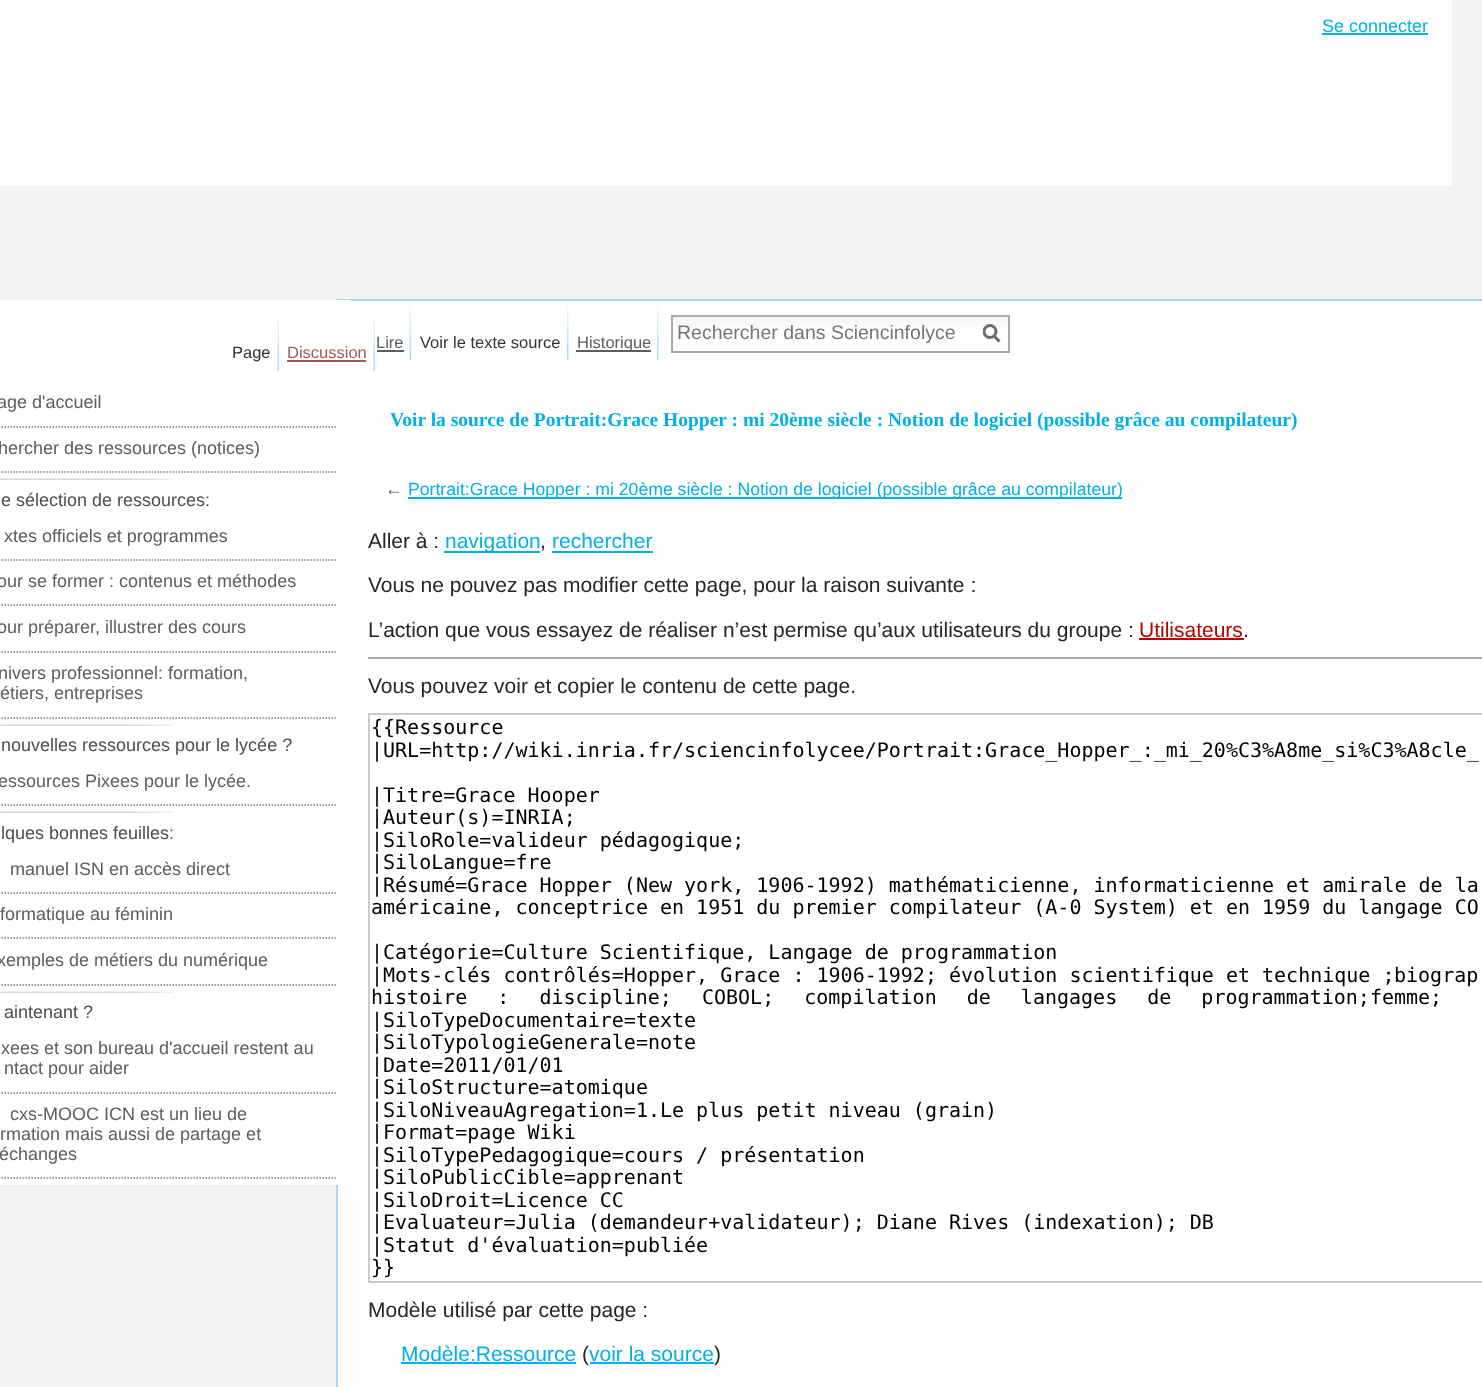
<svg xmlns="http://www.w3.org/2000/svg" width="1482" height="1387">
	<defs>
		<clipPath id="clip1"><rect x="983" y="324" width="18" height="20" /></clipPath>
	</defs>
	<rect width="100%" height="100%" fill="#F3F3F3" />
	<rect x="0" y="0" width="1452" height="186" fill="#FFFFFF" />
	<text x="1322" y="32" font-family="Liberation Sans" font-size="18" fill="#00B1E6">Se connecter</text>
	<rect x="1322" y="33" width="106" height="2" fill="#00B1E6" />
	<rect x="338" y="301" width="1144" height="1086" fill="#FFFFFF" />
	<image x="409" y="307" width="2" height="53" href="assets/img1.png" />
	<text x="376" y="348" font-family="Liberation Sans" font-size="16.5" fill="#5D5D5D">Lire</text>
	<rect x="377" y="350" width="27" height="2" fill="#5D5D5D" />
	<image x="567" y="307" width="2" height="53" href="assets/img2.png" />
	<text x="420" y="348" font-family="Liberation Sans" font-size="16.5" fill="#333333">Voir le texte source</text>
	<image x="657" y="307" width="2" height="53" href="assets/img2.png" />
	<rect x="576" y="350" width="75" height="2" fill="#5D5D5D" />
	<text x="577" y="348" font-family="Liberation Sans" font-size="16.5" fill="#5D5D5D">Historique</text>
	<image x="670" y="316" width="338" height="13" href="assets/img3.png" />
	<rect x="672" y="316" width="337" height="36" fill="none" stroke="#AAAAAA" stroke-width="2" />
	<text x="677" y="339" font-family="Liberation Sans" font-size="19.5" fill="#757575">Rechercher dans Sciencinfolyce</text>
	<path d="M999.5 341.5L993.5 335.5" fill="none" stroke="#6C6C6C" stroke-width="3" />
	<g clip-path="url(#clip1)">
		<circle cx="990" cy="331.5" r="6" fill="none" stroke="#6C6C6C" stroke-width="3" />
	</g>
	<rect x="336" y="299" width="1146" height="2" fill="#A7D7F9" />
	<rect x="336" y="299" width="2" height="1088" fill="#A7D7F9" />
	<rect x="0" y="300" width="351" height="885" fill="#FFFFFF" />
	<image x="277" y="318" width="2" height="53" href="assets/img4.png" />
	<text x="232" y="358" font-family="Liberation Sans" font-size="16.5" fill="#333333">Page</text>
	<image x="373" y="318" width="2" height="53" href="assets/img4.png" />
	<text x="287" y="358" font-family="Liberation Sans" font-size="16.5" fill="#A55858">Discussion</text>
	<rect x="287" y="360" width="79" height="2" fill="#A55858" />
	<path d="M-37.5 427H337.5" fill="none" stroke="#7C7C7C" stroke-width="1.5" stroke-dasharray="1.5 1.5" />
	<text x="-3" y="408" font-family="Liberation Sans" font-size="18" fill="#5D5D5D">age d'accueil</text>
	<path d="M-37.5 472H337.5" fill="none" stroke="#7C7C7C" stroke-width="1.5" stroke-dasharray="1.5 1.5" />
	<text x="-2" y="454" font-family="Liberation Sans" font-size="18" fill="#5D5D5D">hercher des ressources (notices)</text>
	<image x="0" y="478" width="173" height="2" href="assets/img5.png" />
	<text x="1" y="506" font-family="Liberation Sans" font-size="18" fill="#4D4D4D">e sélection de ressources:</text>
	<path d="M-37.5 560H337.5" fill="none" stroke="#7C7C7C" stroke-width="1.5" stroke-dasharray="1.5 1.5" />
	<text x="4" y="542" font-family="Liberation Sans" font-size="18" fill="#5D5D5D">xtes officiels et programmes</text>
	<path d="M-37.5 605H337.5" fill="none" stroke="#7C7C7C" stroke-width="1.5" stroke-dasharray="1.5 1.5" />
	<text x="-3" y="587" font-family="Liberation Sans" font-size="18" fill="#5D5D5D">our se former : contenus et méthodes</text>
	<path d="M-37.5 652H337.5" fill="none" stroke="#7C7C7C" stroke-width="1.5" stroke-dasharray="1.5 1.5" />
	<text x="-3" y="633" font-family="Liberation Sans" font-size="18" fill="#5D5D5D">our préparer, illustrer des cours</text>
	<path d="M-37.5 718H337.5" fill="none" stroke="#7C7C7C" stroke-width="1.5" stroke-dasharray="1.5 1.5" />
	<g font-family="Liberation Sans" font-size="18" fill="#5D5D5D">
		<text x="-2" y="679">nivers professionnel: formation,</text>
		<text x="0" y="699">étiers, entreprises</text>
	</g>
	<image x="0" y="724" width="173" height="2" href="assets/img5.png" />
	<text x="1" y="751" font-family="Liberation Sans" font-size="18" fill="#4D4D4D">nouvelles ressources pour le lycée ?</text>
	<path d="M-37.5 805H337.5" fill="none" stroke="#7C7C7C" stroke-width="1.5" stroke-dasharray="1.5 1.5" />
	<text x="-2" y="787" font-family="Liberation Sans" font-size="18" fill="#5D5D5D">essources Pixees pour le lycée.</text>
	<image x="0" y="811" width="173" height="2" href="assets/img5.png" />
	<text x="1" y="839" font-family="Liberation Sans" font-size="18" fill="#4D4D4D">lques bonnes feuilles:</text>
	<path d="M-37.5 893H337.5" fill="none" stroke="#7C7C7C" stroke-width="1.5" stroke-dasharray="1.5 1.5" />
	<text x="10" y="875" font-family="Liberation Sans" font-size="18" fill="#5D5D5D">manuel ISN en accès direct</text>
	<path d="M-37.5 938H337.5" fill="none" stroke="#7C7C7C" stroke-width="1.5" stroke-dasharray="1.5 1.5" />
	<text x="0" y="920" font-family="Liberation Sans" font-size="18" fill="#5D5D5D">formatique au féminin</text>
	<path d="M-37.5 985H337.5" fill="none" stroke="#7C7C7C" stroke-width="1.5" stroke-dasharray="1.5 1.5" />
	<text x="-3" y="966" font-family="Liberation Sans" font-size="18" fill="#5D5D5D">xemples de métiers du numérique</text>
	<image x="0" y="991" width="173" height="2" href="assets/img5.png" />
	<text x="4" y="1018" font-family="Liberation Sans" font-size="18" fill="#4D4D4D">aintenant ?</text>
	<path d="M-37.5 1093H337.5" fill="none" stroke="#7C7C7C" stroke-width="1.5" stroke-dasharray="1.5 1.5" />
	<g font-family="Liberation Sans" font-size="18" fill="#5D5D5D">
		<text x="1" y="1054">xees et son bureau d'accueil restent au</text>
		<text x="4" y="1074">ntact pour aider</text>
	</g>
	<path d="M-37.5 1178H337.5" fill="none" stroke="#7C7C7C" stroke-width="1.5" stroke-dasharray="1.5 1.5" />
	<g font-family="Liberation Sans" font-size="18" fill="#5D5D5D">
		<text x="10" y="1120">cxs-MOOC ICN est un lieu de</text>
		<text x="0" y="1140">rmation mais aussi de partage et</text>
		<text x="-1" y="1160">échanges</text>
	</g>
	<text x="390" y="426" font-family="Liberation Serif" font-size="19.5" font-weight="700" fill="#00B1E6">Voir la source de Portrait:Grace Hopper : mi 20ème siècle : Notion de logiciel (possible grâce au compilateur)</text>
	<text x="385" y="495" font-family="Liberation Sans" font-size="17.65" fill="#54595D">←</text>
	<rect x="408" y="497" width="714" height="2" fill="#00B1E6" />
	<text x="408" y="495" font-family="Liberation Sans" font-size="17.65" fill="#00B1E6">Portrait:Grace Hopper : mi 20ème siècle : Notion de logiciel (possible grâce au compilateur)</text>
	<text x="368" y="548" font-family="Liberation Sans" font-size="21" fill="#252525">Aller à :</text>
	<rect x="444" y="551" width="96" height="2" fill="#00B1E6" />
	<text x="445" y="548" font-family="Liberation Sans" font-size="21" fill="#00B1E6">navigation</text>
	<text x="540" y="548" font-family="Liberation Sans" font-size="21" fill="#252525">,</text>
	<text x="552" y="548" font-family="Liberation Sans" font-size="21" fill="#00B1E6">rechercher</text>
	<rect x="552" y="551" width="101" height="2" fill="#00B1E6" />
	<g font-family="Liberation Sans" font-size="21" fill="#252525">
		<text x="368" y="592">Vous ne pouvez pas modifier cette page, pour la raison suivante :</text>
		<text x="368" y="637">L’action que vous essayez de réaliser n’est permise qu’aux utilisateurs du groupe :</text>
	</g>
	<text x="1139" y="637" font-family="Liberation Sans" font-size="21" fill="#BA0000">Utilisateurs</text>
	<rect x="1139" y="638" width="105" height="2" fill="#BA0000" />
	<text x="1243" y="637" font-family="Liberation Sans" font-size="21" fill="#252525">.</text>
	<rect x="368" y="657" width="1114" height="2" fill="#A2A9B1" />
	<text x="368" y="693" font-family="Liberation Sans" font-size="21" fill="#252525">Vous pouvez voir et copier le contenu de cette page.</text>
	<rect x="369" y="714" width="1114" height="568" fill="none" stroke="#C8CCD1" stroke-width="2" />
	<g font-family="DejaVu Sans Mono" font-size="20" fill="#000000">
		<text x="371" y="734">{{Ressource</text>
		<text x="371" y="757">|URL=http://wiki.inria.fr/sciencinfolycee/Portrait:Grace_Hopper_:_mi_20%C3%A8me_si%C3%A8cle_</text>
		<text x="371" y="802">|Titre=Grace Hooper</text>
		<text x="371" y="824">|Auteur(s)=INRIA;</text>
		<text x="371" y="847">|SiloRole=valideur pédagogique;</text>
		<text x="371" y="869">|SiloLangue=fre</text>
		<text x="371" y="892">|Résumé=Grace Hopper (New york, 1906-1992) mathématicienne, informaticienne et amirale de la</text>
		<text x="371" y="914">américaine, conceptrice en 1951 du premier compilateur (A-0 System) et en 1959 du langage CO</text>
		<text x="371" y="959">|Catégorie=Culture Scientifique, Langage de programmation</text>
		<text x="371" y="982">|Mots-clés contrôlés=Hopper, Grace : 1906-1992; évolution scientifique et technique ;</text>
		<text x="1394" y="982">biograp</text>
		<text x="371" y="1004" word-spacing="18">histoire : discipline; COBOL; compilation de langages de programmation;femme;</text>
		<text x="371" y="1027">|SiloTypeDocumentaire=texte</text>
		<text x="371" y="1049">|SiloTypologieGenerale=note</text>
		<text x="371" y="1072">|Date=2011/01/01</text>
		<text x="371" y="1094">|SiloStructure=atomique</text>
		<text x="371" y="1117">|SiloNiveauAgregation=1.Le plus petit niveau (grain)</text>
		<text x="371" y="1139">|Format=page Wiki</text>
		<text x="371" y="1162">|SiloTypePedagogique=cours / présentation</text>
		<text x="371" y="1184">|SiloPublicCible=apprenant</text>
		<text x="371" y="1207">|SiloDroit=Licence CC</text>
		<text x="371" y="1229">|Evaluateur=Julia (demandeur+validateur); Diane Rives (indexation); DB</text>
		<text x="371" y="1252">|Statut d'évaluation=publiée</text>
		<text x="371" y="1274">}}</text>
	</g>
	<text x="368" y="1317" font-family="Liberation Sans" font-size="21" fill="#252525">Modèle utilisé par cette page :</text>
	<text x="401" y="1361" font-family="Liberation Sans" font-size="21" fill="#00B1E6">Modèle:Ressource</text>
	<rect x="401" y="1362" width="175" height="2" fill="#00B1E6" />
	<text x="582" y="1361" font-family="Liberation Sans" font-size="21" fill="#252525">(</text>
	<text x="589" y="1361" font-family="Liberation Sans" font-size="21" fill="#00B1E6">voir la source</text>
	<rect x="590" y="1362" width="124" height="2" fill="#00B1E6" />
	<text x="714" y="1361" font-family="Liberation Sans" font-size="21" fill="#252525">)</text>
</svg>
